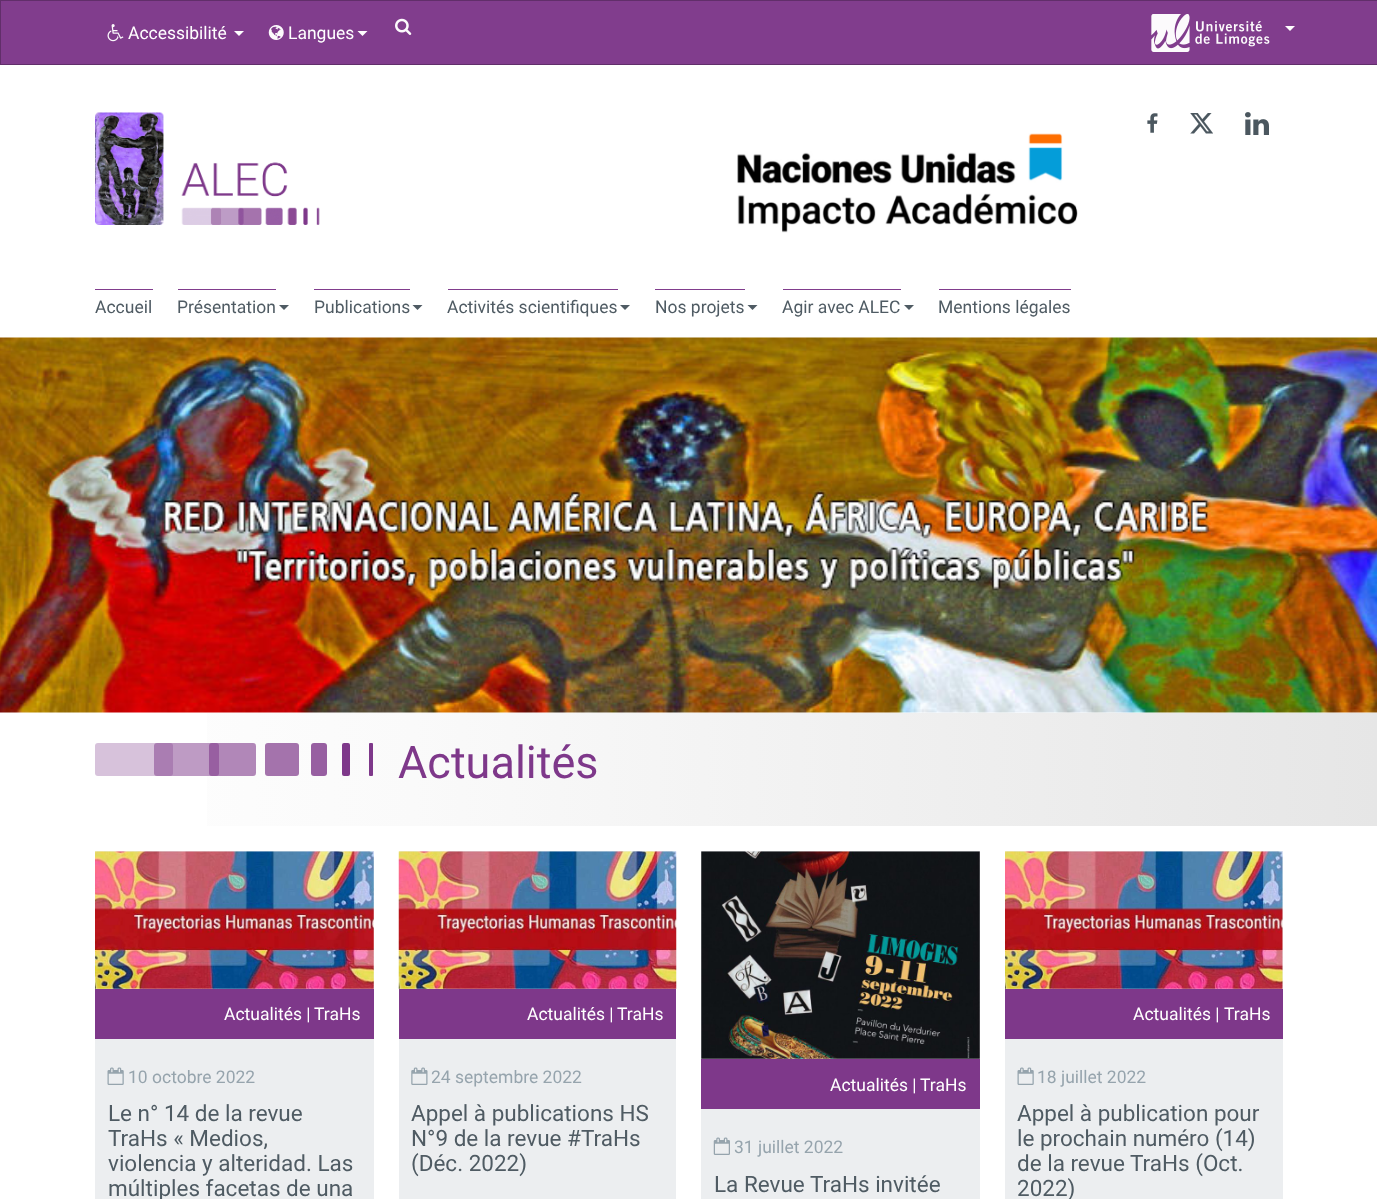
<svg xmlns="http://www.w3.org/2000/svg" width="1377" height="1199">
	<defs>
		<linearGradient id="g1" gradientUnits="userSpaceOnUse" x1="0" y1="769" x2="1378" y2="769"><stop offset="0" stop-color="#FFFFFF" /><stop offset="0.3" stop-color="#FAFAFA" /><stop offset="1" stop-color="#E6E6E6" /></linearGradient>
	</defs>
	<rect width="100%" height="100%" fill="#FFFFFF" />
	<rect x="0.5" y="0.5" width="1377" height="64" fill="#813D8D" stroke="#612E6A" />
	<image x="107" y="24" width="17" height="18" href="assets/img1.png" />
	<text x="128" y="39" font-family="Roboto" font-size="17.5" fill="#FFFFFF">Accessibilité</text>
	<path d="M234 31H244L239 36Z" fill="#FFFFFF" />
	<image x="268" y="25" width="16" height="15" href="assets/img2.png" />
	<text x="288" y="39" font-family="Roboto" font-size="17.5" fill="#FFFFFF">Langues</text>
	<path d="M357.5 31H367.5L362.5 36Z" fill="#FFFFFF" />
	<image x="395" y="18" width="17" height="17" href="assets/img3.png" />
	<image x="1151" y="14" width="119" height="38" href="assets/img4.png" />
	<path d="M1285 26H1295L1290 31Z" fill="#FFFFFF" />
	<image x="95" y="112" width="225" height="113" href="assets/img5.png" />
	<image x="1147" y="113" width="11" height="20" href="assets/img6.png" />
	<image x="1190" y="113" width="23" height="21" href="assets/img7.png" />
	<image x="1245" y="112" width="24" height="23" href="assets/img8.png" />
	<image x="737" y="133" width="341" height="100" href="assets/img9.png" />
	<text x="95" y="313" font-family="Roboto" font-size="17.5" fill="#4F5B63">Accueil</text>
	<rect x="95" y="289" width="58" height="1" fill="#813D8D" />
	<text x="177" y="313" font-family="Roboto" font-size="17.5" fill="#4F5B63">Présentation</text>
	<rect x="178" y="289" width="98" height="1" fill="#813D8D" />
	<path d="M279 305H289L284 310Z" fill="#4F5B63" />
	<text x="314" y="313" font-family="Roboto" font-size="17.5" fill="#4F5B63">Publications</text>
	<rect x="314" y="289" width="96" height="1" fill="#813D8D" />
	<path d="M412.5 305H422.5L417.5 310Z" fill="#4F5B63" />
	<text x="447" y="313" font-family="Roboto" font-size="17.5" fill="#4F5B63">Activités scientifiques</text>
	<rect x="448" y="289" width="170" height="1" fill="#813D8D" />
	<path d="M620 305H630L625 310Z" fill="#4F5B63" />
	<text x="655" y="313" font-family="Roboto" font-size="17.5" fill="#4F5B63">Nos projets</text>
	<rect x="655" y="289" width="90" height="1" fill="#813D8D" />
	<path d="M747.5 305H757.5L752.5 310Z" fill="#4F5B63" />
	<text x="782" y="313" font-family="Roboto" font-size="17.5" fill="#4F5B63">Agir avec ALEC</text>
	<rect x="783" y="289" width="118" height="1" fill="#813D8D" />
	<path d="M904 305H914L909 310Z" fill="#4F5B63" />
	<text x="938" y="313" font-family="Roboto" font-size="17.5" fill="#4F5B63">Mentions légales</text>
	<rect x="939" y="289" width="132" height="1" fill="#813D8D" />
	<image x="0" y="337" width="1377" height="376" href="assets/img10.png" />
	<rect x="207" y="713" width="1170" height="113" fill="url(#g1)" />
	<rect x="95" y="743" width="78" height="33" rx="3" fill="#D7C2DB" />
	<rect x="154" y="743" width="65" height="33" rx="3" fill="#7E388A" fill-opacity="0.5" />
	<rect x="209" y="743" width="47" height="33" rx="3" fill="#7E388A" fill-opacity="0.6" />
	<rect x="265" y="743" width="34" height="33" rx="3" fill="#A473AC" />
	<rect x="311" y="743" width="16" height="33" rx="3" fill="#975FA1" />
	<rect x="342" y="743" width="8" height="33" rx="2" fill="#7E388A" />
	<rect x="369" y="743" width="4" height="33" rx="1" fill="#7E388A" />
	<text x="398" y="778" font-family="Roboto" font-size="45" fill="#7E388A">Actualités</text>
	<rect x="95" y="851" width="279" height="348" fill="#ECEEF0" />
	<image x="95" y="851" width="279" height="138" href="assets/img11.png" />
	<rect x="95" y="989" width="279" height="50" fill="#7E388A" />
	<g font-family="Roboto" font-size="17.5" fill="#FFFFFF">
		<text x="224" y="1020">Actualités |</text>
		<text x="314" y="1020">TraHs</text>
	</g>
	<image x="107" y="1067" width="17" height="18" href="assets/img12.png" />
	<text x="128" y="1083" font-family="Roboto" font-size="17.5" fill="#96A4AD">10 octobre 2022</text>
	<g font-family="Roboto" font-size="22.5" fill="#4F5B63">
		<text x="108" y="1121">Le n° 14 de la revue</text>
		<text x="108" y="1146">TraHs « Medios,</text>
		<text x="108" y="1171">violencia y alteridad. Las</text>
		<text x="108" y="1196">múltiples facetas de una</text>
	</g>
	<rect x="399" y="851" width="277" height="348" fill="#ECEEF0" />
	<image x="398" y="851" width="279" height="138" href="assets/img13.png" />
	<rect x="399" y="989" width="277" height="50" fill="#7E388A" />
	<g font-family="Roboto" font-size="17.5" fill="#FFFFFF">
		<text x="527" y="1020">Actualités |</text>
		<text x="617" y="1020">TraHs</text>
	</g>
	<image x="411" y="1067" width="17" height="18" href="assets/img14.png" />
	<text x="431" y="1083" font-family="Roboto" font-size="17.5" fill="#96A4AD">24 septembre 2022</text>
	<g font-family="Roboto" font-size="22.5" fill="#4F5B63">
		<text x="411" y="1121">Appel à publications HS</text>
		<text x="411" y="1146">N°9 de la revue #TraHs</text>
		<text x="411" y="1171">(Déc. 2022)</text>
	</g>
	<rect x="701" y="851" width="279" height="348" fill="#ECEEF0" />
	<image x="701" y="851" width="279" height="208" href="assets/img15.png" />
	<rect x="701" y="1059" width="279" height="50" fill="#7E388A" />
	<g font-family="Roboto" font-size="17.5" fill="#FFFFFF">
		<text x="830" y="1091">Actualités |</text>
		<text x="920" y="1091">TraHs</text>
	</g>
	<image x="713" y="1137" width="17" height="18" href="assets/img16.png" />
	<text x="734" y="1153" font-family="Roboto" font-size="17.5" fill="#96A4AD">31 juillet 2022</text>
	<text x="714" y="1192" font-family="Roboto" font-size="22.5" fill="#4F5B63">La Revue TraHs invitée</text>
	<rect x="1005" y="851" width="278" height="348" fill="#ECEEF0" />
	<image x="1005" y="851" width="278" height="138" href="assets/img17.png" />
	<rect x="1005" y="989" width="278" height="50" fill="#7E388A" />
	<g font-family="Roboto" font-size="17.5" fill="#FFFFFF">
		<text x="1133" y="1020">Actualités |</text>
		<text x="1224" y="1020">TraHs</text>
	</g>
	<image x="1017" y="1067" width="17" height="18" href="assets/img12.png" />
	<text x="1037" y="1083" font-family="Roboto" font-size="17.5" fill="#96A4AD">18 juillet 2022</text>
	<g font-family="Roboto" font-size="22.5" fill="#4F5B63">
		<text x="1017" y="1121">Appel à publication pour</text>
		<text x="1017" y="1146">le prochain numéro (14)</text>
		<text x="1017" y="1171">de la revue TraHs (Oct.</text>
		<text x="1017" y="1196">2022)</text>
	</g>
</svg>
